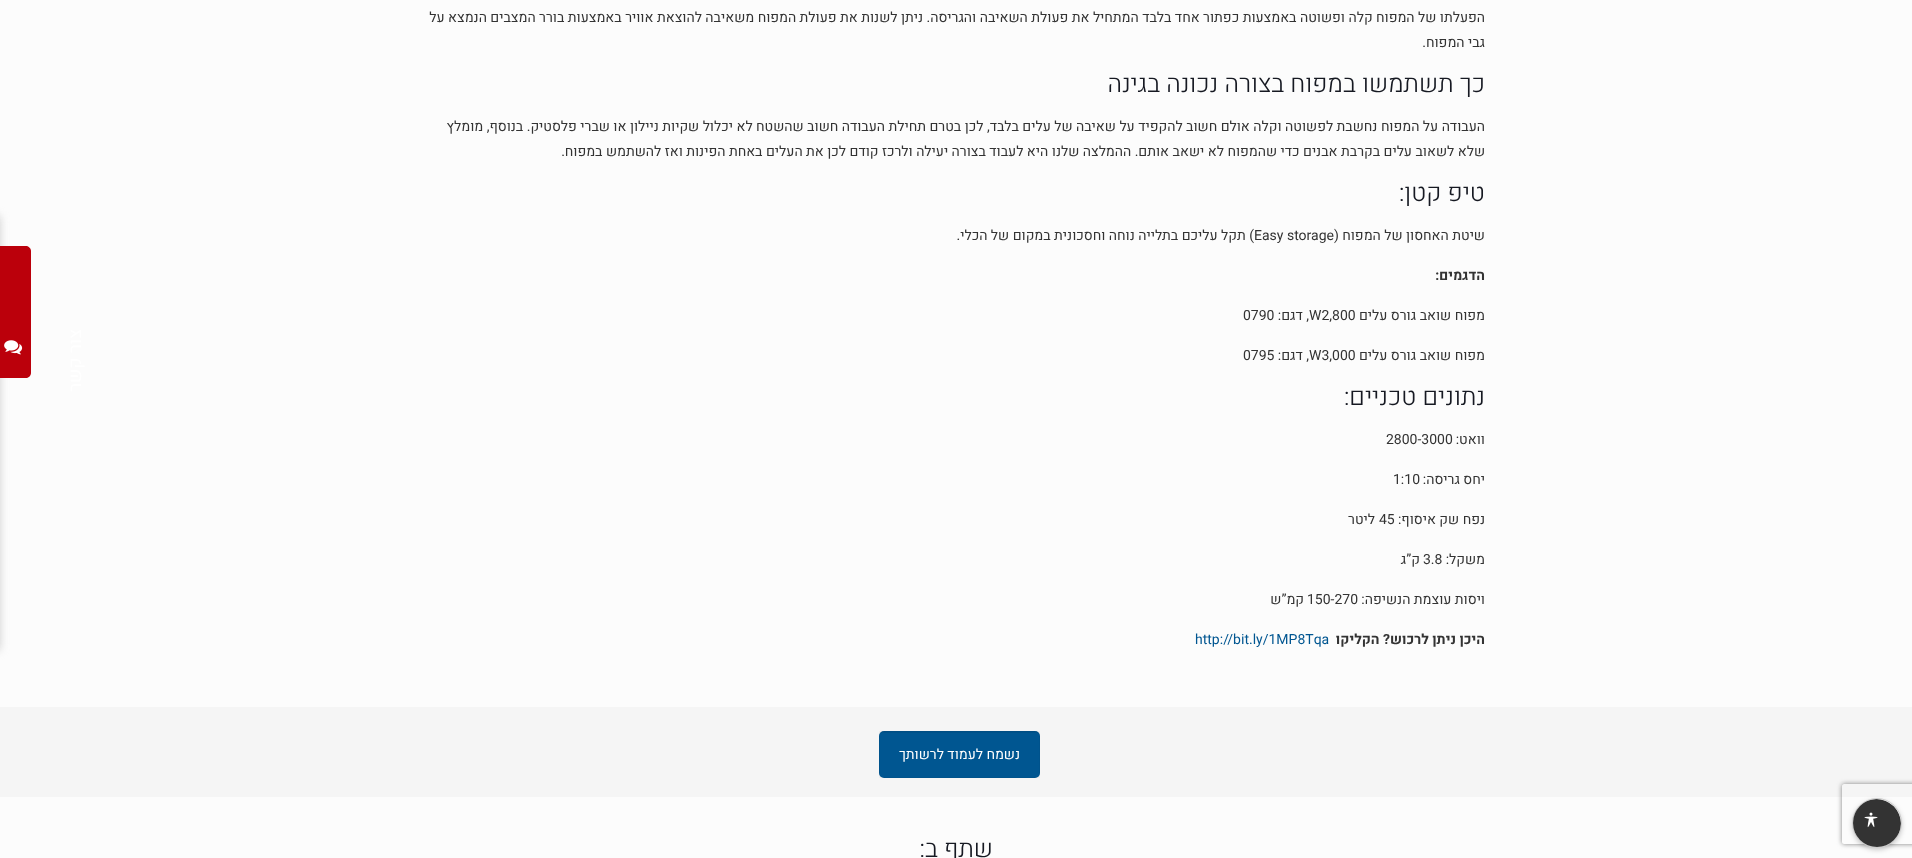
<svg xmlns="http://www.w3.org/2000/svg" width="1912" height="858">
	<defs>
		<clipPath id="clip1"><path d="M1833 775H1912V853H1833ZM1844 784H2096C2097 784 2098 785 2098 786V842C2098 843 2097 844 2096 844H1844C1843 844 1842 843 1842 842V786C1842 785 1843 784 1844 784Z" clip-rule="evenodd" /></clipPath>
		<clipPath id="clip2"><rect x="1853" y="799" width="48" height="48" rx="24" /></clipPath>
	</defs>
	<rect width="100%" height="100%" fill="#FCFCFC" />
	<g font-family="Heebo" font-size="14" direction="rtl" fill="#333333">
		<text x="1485" y="22">הפעלתו של המפוח קלה ופשוטה באמצעות כפתור אחד בלבד המתחיל את פעולת השאיבה והגריסה. ניתן לשנות את פעולת המפוח משאיבה להוצאת אוויר באמצעות בורר המצבים הנמצא על</text>
		<text x="1485" y="47">גבי המפוח.</text>
	</g>
	<text x="1485" y="92" font-family="Heebo" font-size="25" font-weight="300" direction="rtl" fill="#161922">כך תשתמשו במפוח בצורה נכונה בגינה</text>
	<g font-family="Heebo" font-size="14" direction="rtl" fill="#333333">
		<text x="1485" y="131">העבודה על המפוח נחשבת לפשוטה וקלה אולם חשוב להקפיד על שאיבה של עלים בלבד, לכן בטרם תחילת העבודה חשוב שהשטח לא יכלול שקיות ניילון או שברי פלסטיק. בנוסף, מומלץ</text>
		<text x="1485" y="156">שלא לשאוב עלים בקרבת אבנים כדי שהמפוח לא ישאב אותם. ההמלצה שלנו היא לעבוד בצורה יעילה ולרכז קודם לכן את העלים באחת הפינות ואז להשתמש במפוח.</text>
	</g>
	<text x="1485" y="201" font-family="Heebo" font-size="25" font-weight="300" direction="rtl" fill="#161922">טיפ קטן:</text>
	<text x="1485" y="240" font-family="Heebo" font-size="14" direction="rtl" fill="#333333">שיטת האחסון של המפוח (</text>
	<text x="1254" y="240" font-family="Heebo" font-size="14" fill="#333333">Easy storage</text>
	<text x="1254" y="240" font-family="Heebo" font-size="14" direction="rtl" fill="#333333">) תקל עליכם בתלייה נוחה וחסכונית במקום של הכלי.</text>
	<text x="1485" y="280" font-family="Heebo" font-size="14" font-weight="700" direction="rtl" fill="#333333">הדגמים:</text>
	<text x="1485" y="320" font-family="Heebo" font-size="14" direction="rtl" fill="#333333">מפוח שואב גורס עלים</text>
	<text x="1309" y="320" font-family="Heebo" font-size="14" fill="#333333">W2,800</text>
	<text x="1309" y="320" font-family="Heebo" font-size="14" direction="rtl" fill="#333333">, דגם:</text>
	<text x="1243" y="320" font-family="Heebo" font-size="14" fill="#333333">0790</text>
	<text x="1485" y="360" font-family="Heebo" font-size="14" direction="rtl" fill="#333333">מפוח שואב גורס עלים</text>
	<text x="1309" y="360" font-family="Heebo" font-size="14" fill="#333333">W3,000</text>
	<text x="1309" y="360" font-family="Heebo" font-size="14" direction="rtl" fill="#333333">, דגם:</text>
	<text x="1243" y="360" font-family="Heebo" font-size="14" fill="#333333">0795</text>
	<text x="1485" y="405" font-family="Heebo" font-size="25" font-weight="300" direction="rtl" fill="#161922">נתונים טכניים:</text>
	<text x="1485" y="444" font-family="Heebo" font-size="14" direction="rtl" fill="#333333">וואט:</text>
	<text x="1386" y="444" font-family="Heebo" font-size="14" fill="#333333">2800-3000</text>
	<text x="1485" y="484" font-family="Heebo" font-size="14" direction="rtl" fill="#333333">יחס גריסה:</text>
	<text x="1393" y="484" font-family="Heebo" font-size="14" fill="#333333">1:10</text>
	<text x="1485" y="524" font-family="Heebo" font-size="14" direction="rtl" fill="#333333">נפח שק איסוף:</text>
	<text x="1379" y="524" font-family="Heebo" font-size="14" fill="#333333">45</text>
	<g font-family="Heebo" font-size="14" direction="rtl" fill="#333333">
		<text x="1375" y="524">ליטר</text>
		<text x="1485" y="564">משקל:</text>
	</g>
	<text x="1423" y="564" font-family="Heebo" font-size="14" fill="#333333">3.8</text>
	<g font-family="Heebo" font-size="14" direction="rtl" fill="#333333">
		<text x="1420" y="564">ק”ג</text>
		<text x="1485" y="604">ויסות עוצמת הנשיפה:</text>
	</g>
	<text x="1307" y="604" font-family="Heebo" font-size="14" fill="#333333">150-270</text>
	<text x="1304" y="604" font-family="Heebo" font-size="14" direction="rtl" fill="#333333">קמ”ש</text>
	<text x="1485" y="644" font-family="Heebo" font-size="14" font-weight="700" direction="rtl" fill="#333333">היכן ניתן לרכוש? הקליקו</text>
	<text x="1195" y="644" font-family="Heebo" font-size="14" fill="#005691">http://bit.ly/1MP8Tqa</text>
	<rect x="0" y="707" width="1912" height="90" fill="#F5F5F5" />
	<rect x="879" y="731" width="161" height="47" rx="5" fill="#005691" />
	<image x="880" y="731" width="159" height="2" href="assets/img1.png" />
	<rect x="879.5" y="731.5" width="160" height="46" fill="none" stroke="#000000" stroke-opacity="0.03" />
	<text x="1020" y="759" font-family="Heebo" font-size="14" direction="rtl" fill="#FFFFFF">נשמח לעמוד לרשותך</text>
	<text x="993" y="857" font-family="Heebo" font-size="25" font-weight="300" direction="rtl" fill="#161922">שתף ב:</text>
	<rect x="-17" y="215" width="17" height="436" rx="5" fill="#CECECE" filter="blur(4px)" />
	<path d="M-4 378V246H26C28 246 31 248 31 251V373C31 376 28 378 26 378Z" fill="#BB000B" />
	<text x="81" y="329" transform="rotate(-90 81 329)" font-family="Heebo" font-size="18" direction="rtl" fill="#FFFFFF">צור קשר</text>
	<image x="4" y="340" width="19" height="15" href="assets/img2.png" />
	<g clip-path="url(#clip1)">
		<rect x="1842" y="784" width="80" height="60" rx="2" fill="#808080" filter="blur(2.5px)" />
	</g>
	<rect x="1852" y="800" width="50" height="50" rx="25" fill="#000000" fill-opacity="0.2" filter="blur(2.5px)" />
	<circle cx="1877" cy="823" r="24.5" fill="#F4F4F4" stroke="#CCCCCC" />
	<g clip-path="url(#clip2)">
		<circle cx="1876" cy="824" r="25" fill="#333333" />
	</g>
	<path d="M1876 800C1870 800 1864 802 1860 807C1881 783 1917 819 1893 840C1908 826 1897 800 1876 800Z" fill="#000000" fill-opacity="0.03" />
	<image x="1864" y="812" width="14" height="16" href="assets/img3.png" />
</svg>
